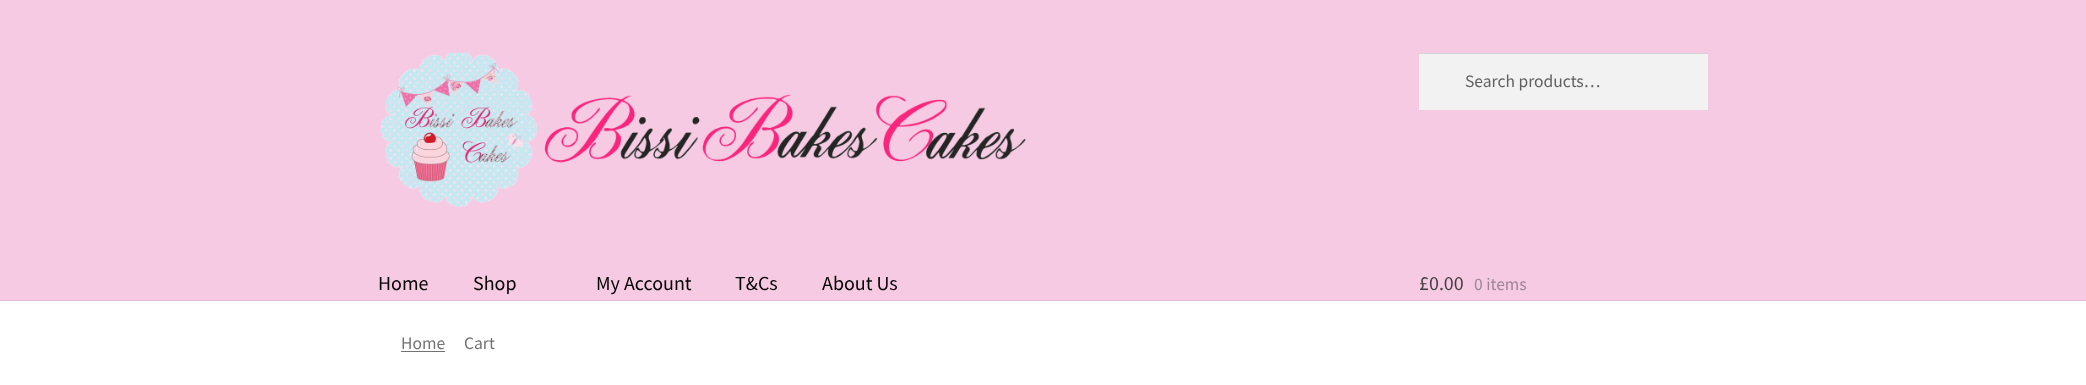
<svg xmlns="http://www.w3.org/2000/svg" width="2086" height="385">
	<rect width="100%" height="100%" fill="#FFFFFF" />
	<rect x="0" y="0" width="2086" height="300" fill="#F7CAE4" />
	<rect x="0" y="300" width="2086" height="1" fill="#E8BBD5" />
	<image x="380" y="52" width="646" height="155" href="assets/img1.png" />
	<rect x="1419" y="54" width="289" height="56" fill="#F2F2F2" />
	<rect x="1419" y="53" width="289" height="1" fill="#D4D4D4" />
	<text x="1465" y="87" font-family="Source Sans Pro" font-size="17.5" fill="#616161">Search products…</text>
	<g font-family="Source Sans Pro" font-size="20" fill="#000000">
		<text x="378" y="290">Home</text>
		<text x="473" y="290">Shop</text>
		<text x="596" y="290">My Account</text>
		<text x="735" y="290">T&amp;Cs</text>
		<text x="822" y="290">About Us</text>
	</g>
	<text x="1419" y="290" font-family="Source Sans Pro" font-size="20" fill="#414141">£0.00</text>
	<text x="1474" y="290" font-family="Source Sans Pro" font-size="17.5" fill="#9C8693">0 items</text>
	<text x="401" y="349" font-family="Source Sans Pro" font-size="17.5" fill="#727272">Home</text>
	<rect x="401" y="351" width="44" height="1" fill="#727272" />
	<text x="464" y="349" font-family="Source Sans Pro" font-size="17.5" fill="#727272">Cart</text>
</svg>
